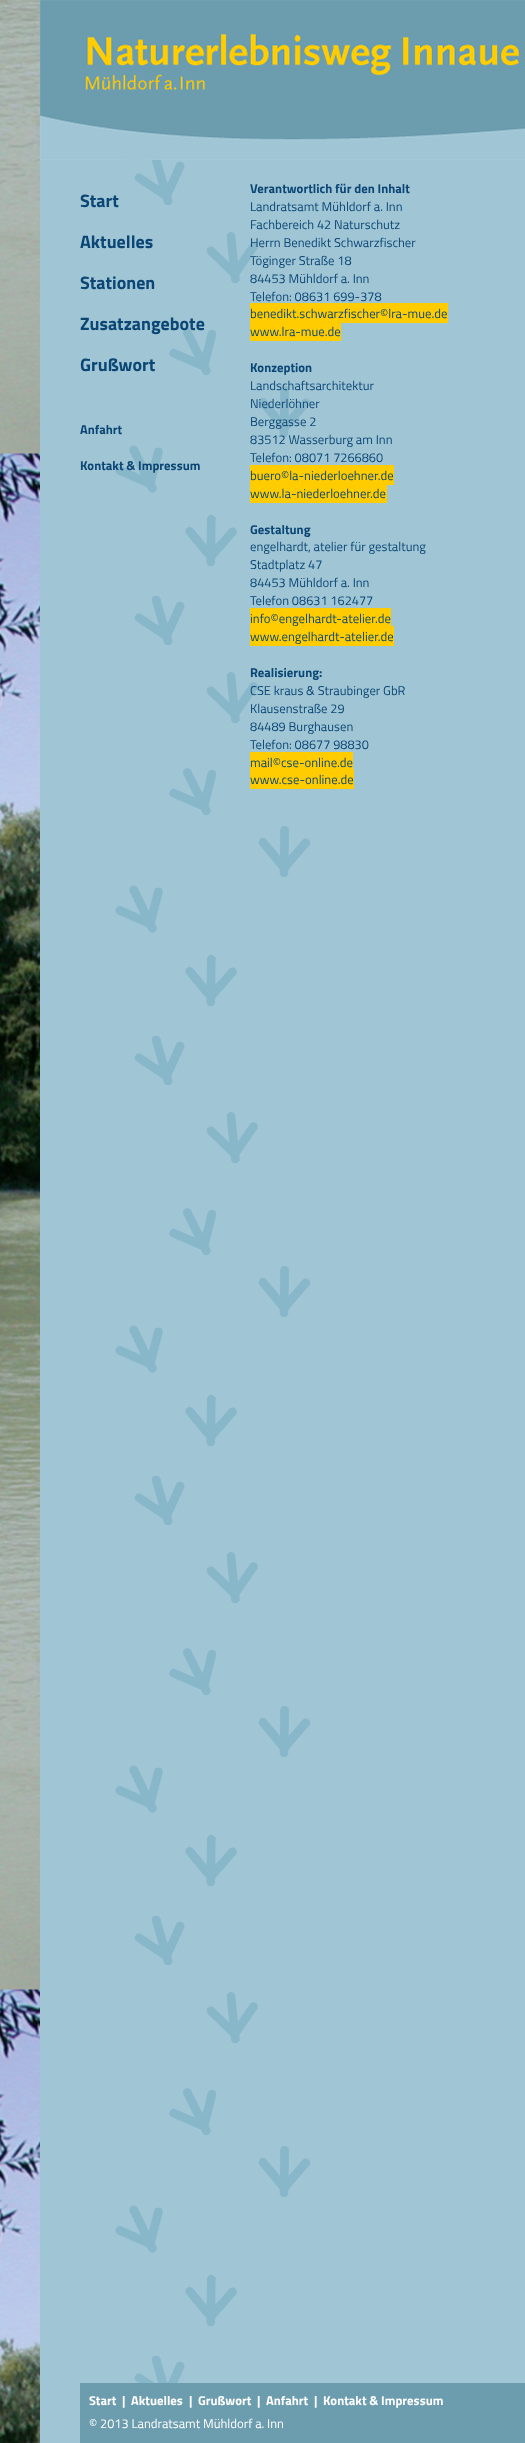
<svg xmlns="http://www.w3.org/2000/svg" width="525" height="2443">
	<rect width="100%" height="100%" fill="#FFFFFF" />
	<image x="0" y="0" width="40" height="2443" href="assets/img1.png" />
	<image x="40" y="160" width="485" height="2283" href="assets/img2.png" />
	<image x="40" y="0" width="485" height="160" href="assets/img3.png" />
	<g font-family="Titillium Web" font-size="18" font-weight="700" fill="#0B4675">
		<text x="80" y="207">Start</text>
		<text x="80" y="248">Aktuelles</text>
		<text x="80" y="289">Stationen</text>
		<text x="80" y="330">Zusatzangebote</text>
		<text x="80" y="371">Grußwort</text>
	</g>
	<g font-family="Titillium Web" font-size="12.75" font-weight="700" fill="#0B4675">
		<text x="80" y="434">Anfahrt</text>
		<text x="80" y="470">Kontakt &amp; Impressum</text>
		<text x="250" y="193">Verantwortlich für den Inhalt</text>
	</g>
	<g font-family="Titillium Web" font-size="12.75" fill="#0B4675">
		<text x="250" y="211">Landratsamt Mühldorf a. Inn</text>
		<text x="250" y="229">Fachbereich 42 Naturschutz</text>
		<text x="250" y="247">Herrn Benedikt Schwarzfischer</text>
		<text x="250" y="265">Töginger Straße 18</text>
		<text x="250" y="283">84453 Mühldorf a. Inn</text>
		<text x="250" y="301">Telefon: 08631 699-378</text>
	</g>
	<rect x="250" y="303" width="198" height="20" fill="#FECC00" />
	<text x="250" y="318" font-family="Titillium Web" font-size="12.75" fill="#0B4675">benedikt.schwarzfischer©lra-mue.de</text>
	<rect x="250" y="323" width="91" height="18" fill="#FECC00" />
	<text x="250" y="336" font-family="Titillium Web" font-size="12.75" fill="#0B4675">www.lra-mue.de</text>
	<text x="250" y="372" font-family="Titillium Web" font-size="12.75" font-weight="700" fill="#0B4675">Konzeption</text>
	<g font-family="Titillium Web" font-size="12.75" fill="#0B4675">
		<text x="250" y="390">Landschaftsarchitektur</text>
		<text x="250" y="408">Niederlöhner</text>
		<text x="250" y="426">Berggasse 2</text>
		<text x="250" y="444">83512 Wasserburg am Inn</text>
		<text x="250" y="462">Telefon: 08071 7266860</text>
	</g>
	<rect x="250" y="465" width="144" height="20" fill="#FECC00" />
	<text x="250" y="480" font-family="Titillium Web" font-size="12.75" fill="#0B4675">buero©la-niederloehner.de</text>
	<rect x="250" y="485" width="137" height="18" fill="#FECC00" />
	<text x="250" y="498" font-family="Titillium Web" font-size="12.75" fill="#0B4675">www.la-niederloehner.de</text>
	<text x="250" y="534" font-family="Titillium Web" font-size="12.75" font-weight="700" fill="#0B4675">Gestaltung</text>
	<g font-family="Titillium Web" font-size="12.75" fill="#0B4675">
		<text x="250" y="551">engelhardt, atelier für gestaltung</text>
		<text x="250" y="569">Stadtplatz 47</text>
		<text x="250" y="587">84453 Mühldorf a. Inn</text>
		<text x="250" y="605">Telefon 08631 162477</text>
	</g>
	<rect x="250" y="608" width="141" height="18" fill="#FECC00" />
	<text x="250" y="623" font-family="Titillium Web" font-size="12.75" fill="#0B4675">info©engelhardt-atelier.de</text>
	<rect x="250" y="626" width="144" height="20" fill="#FECC00" />
	<text x="250" y="641" font-family="Titillium Web" font-size="12.75" fill="#0B4675">www.engelhardt-atelier.de</text>
	<text x="250" y="677" font-family="Titillium Web" font-size="12.75" font-weight="700" fill="#0B4675">Realisierung:</text>
	<g font-family="Titillium Web" font-size="12.75" fill="#0B4675">
		<text x="250" y="695">CSE kraus &amp; Straubinger GbR</text>
		<text x="250" y="713">Klausenstraße 29</text>
		<text x="250" y="731">84489 Burghausen</text>
		<text x="250" y="749">Telefon: 08677 98830</text>
	</g>
	<rect x="250" y="752" width="103" height="17" fill="#FECC00" />
	<text x="250" y="767" font-family="Titillium Web" font-size="12.75" fill="#0B4675">mail©cse-online.de</text>
	<rect x="250" y="769" width="104" height="20" fill="#FECC00" />
	<text x="250" y="784" font-family="Titillium Web" font-size="12.75" fill="#0B4675">www.cse-online.de</text>
	<rect x="80" y="2383" width="445" height="60" fill="#6C9DAF" />
	<g font-family="Titillium Web" font-size="12.75" font-weight="700" fill="#FFFFFF">
		<text x="89" y="2405">Start</text>
		<text x="122" y="2405">|</text>
		<text x="131" y="2405">Aktuelles</text>
		<text x="189" y="2405">|</text>
		<text x="198" y="2405">Grußwort</text>
		<text x="257" y="2405">|</text>
		<text x="266" y="2405">Anfahrt</text>
		<text x="314" y="2405">|</text>
		<text x="323" y="2405">Kontakt &amp; Impressum</text>
	</g>
	<text x="89" y="2428" font-family="Titillium Web" font-size="12.75" fill="#FFFFFF">© 2013 Landratsamt Mühldorf a. Inn</text>
</svg>
